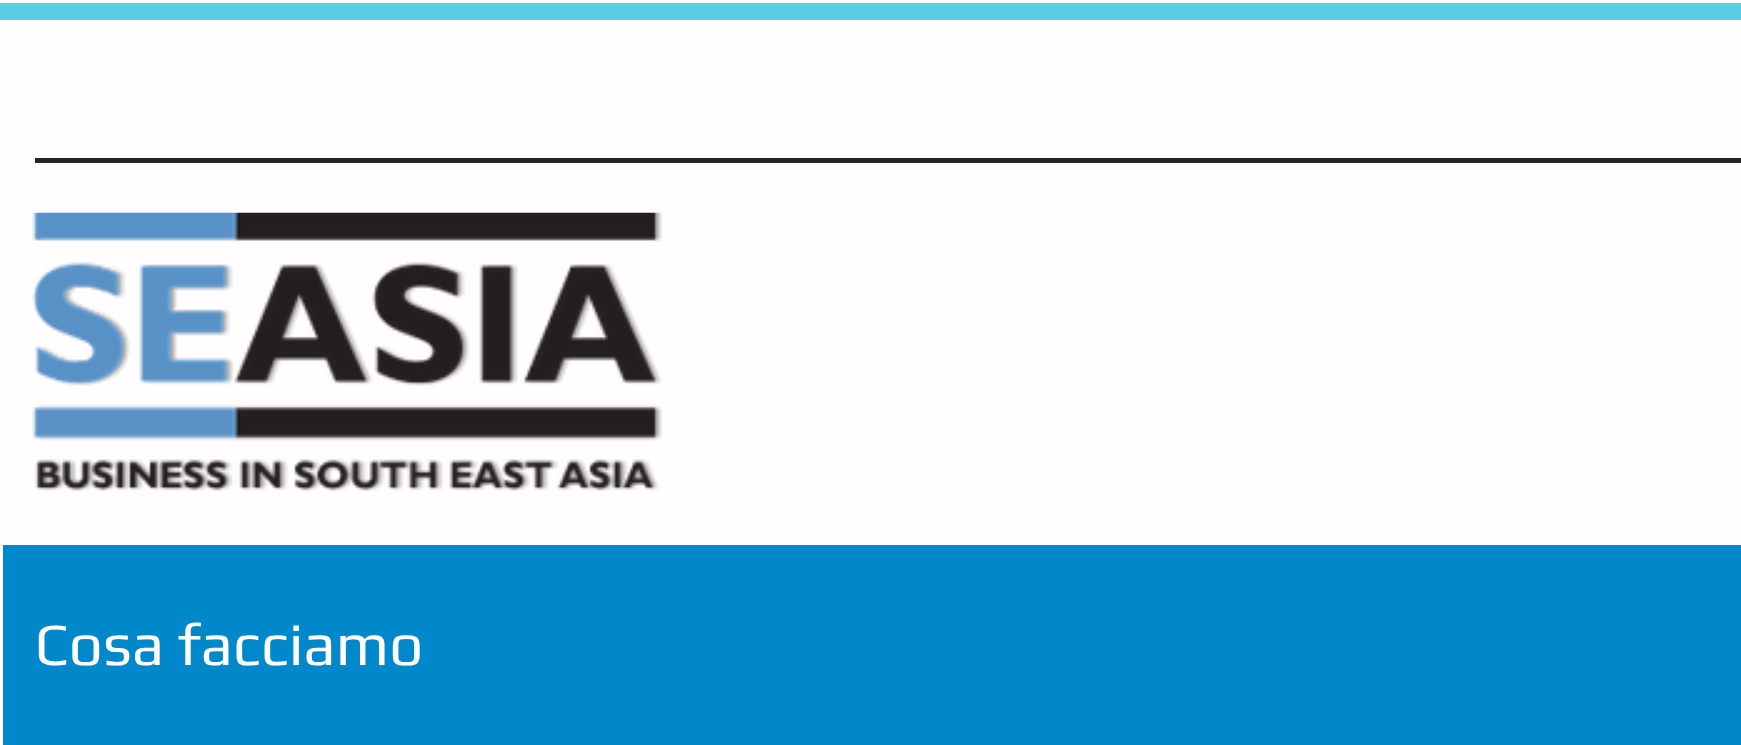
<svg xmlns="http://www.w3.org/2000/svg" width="1741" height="745">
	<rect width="100%" height="100%" fill="#FFFDFD" />
	<rect x="0" y="3" width="1741" height="17" fill="#59CEE5" />
	<rect x="35" y="158" width="1706" height="5" fill="#242424" />
	<image x="32" y="212" width="631" height="279" href="assets/img1.png" />
	<rect x="3" y="545" width="1738" height="200" fill="#0088CB" />
	<text x="35" y="665" font-family="Play" font-size="60" fill="#FFFDFD">Cosa facciamo</text>
</svg>
